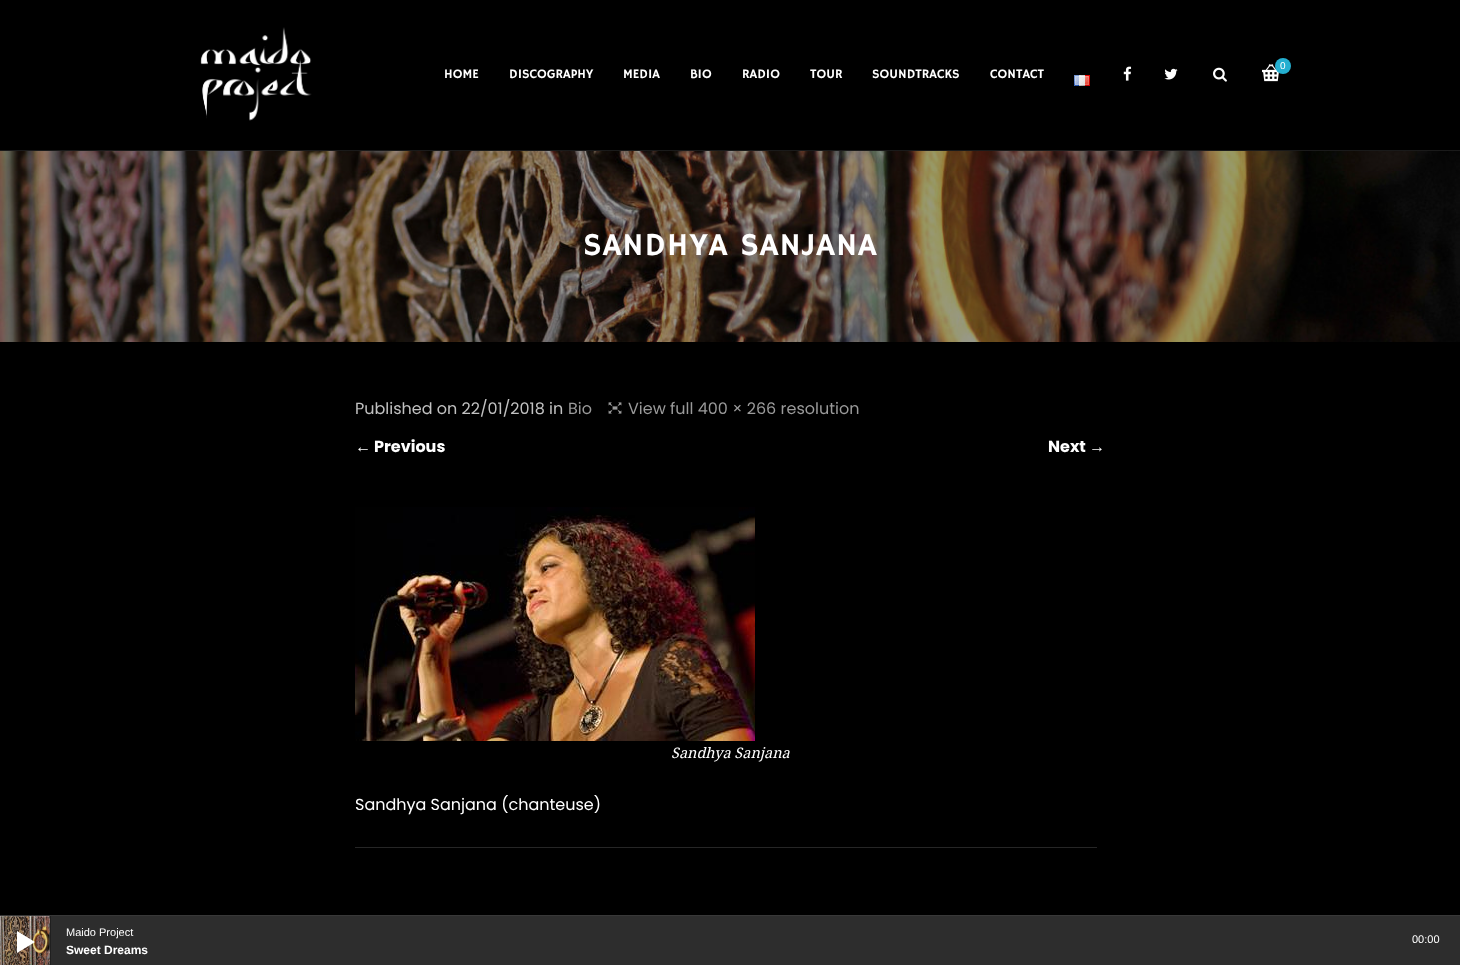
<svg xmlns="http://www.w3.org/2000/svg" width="1460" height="965">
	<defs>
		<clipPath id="clip1"><rect x="0" y="916" width="1460" height="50" /></clipPath>
	</defs>
	<rect width="100%" height="100%" fill="#000000" />
	<rect x="0" y="150" width="1460" height="1" fill="#1A1A1A" />
	<image x="200" y="27" width="112" height="94" href="assets/img1.png" />
	<g font-family="Hammersmith One" font-size="13" fill="#FFFFFF">
		<text x="444" y="78">HOME</text>
		<text x="509" y="78">DISCOGRAPHY</text>
		<text x="623" y="78">MEDIA</text>
		<text x="690" y="78">BIO</text>
		<text x="742" y="78">RADIO</text>
		<text x="810" y="78">TOUR</text>
		<text x="872" y="78">SOUNDTRACKS</text>
		<text x="990" y="78">CONTACT</text>
	</g>
	<image x="1123" y="66" width="9" height="15" href="assets/img2.png" />
	<image x="1164" y="68" width="14" height="12" href="assets/img3.png" />
	<image x="1213" y="67" width="14" height="15" href="assets/img4.png" />
	<image x="1262" y="64" width="18" height="18" href="assets/img5.png" />
	<circle cx="1283" cy="66" r="8" fill="#24AFD0" />
	<text x="1280" y="69" font-family="Liberation Sans" font-size="10" fill="#FFFFFF">0</text>
	<image x="1074" y="75" width="16" height="11" href="assets/img6.png" />
	<image x="0" y="151" width="1460" height="191" href="assets/img7.png" />
	<image x="633" y="151" width="95" height="57" href="assets/img8.png" />
	<text x="583" y="255" font-family="Hammersmith One" font-size="32" letter-spacing="1" fill="#FFFFFF">SANDHYA SANJANA</text>
	<text x="355" y="414" font-family="Poppins" font-size="16" fill="#C1C1C1">Published on 22/01/2018 in</text>
	<text x="568" y="414" font-family="Poppins" font-size="16" fill="#9A9A9A">Bio</text>
	<image x="608" y="402" width="14" height="12" href="assets/img9.png" />
	<text x="628" y="414" font-family="Poppins" font-size="16" fill="#9A9A9A">View full 400 × 266 resolution</text>
	<text x="355" y="452" font-family="Liberation Serif" font-size="16" font-weight="700" fill="#FFFFFF">←</text>
	<g font-family="Poppins" font-size="16" font-weight="700" fill="#FFFFFF">
		<text x="374" y="452">Previous</text>
		<text x="1048" y="452">Next</text>
	</g>
	<text x="1089" y="452" font-family="Liberation Serif" font-size="16" font-weight="700" fill="#FFFFFF">→</text>
	<image x="355" y="507" width="400" height="234" href="assets/img10.png" />
	<text x="671" y="758" font-family="Noto Serif" font-size="14.5" font-style="italic" fill="#FFFFFF">Sandhya Sanjana</text>
	<text x="355" y="810" font-family="Poppins" font-size="16" fill="#FFFFFF">Sandhya Sanjana (chanteuse)</text>
	<rect x="355" y="847" width="742" height="1" fill="#262626" />
	<rect x="51" y="916" width="1409" height="49" fill="#2D2D2D" />
	<rect x="0" y="915" width="1460" height="1" fill="#383838" />
	<g clip-path="url(#clip1)">
		<rect x="-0.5" y="915.5" width="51" height="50" fill="none" stroke="#202020" />
	</g>
	<image x="0" y="916" width="50" height="49" href="assets/img11.png" />
	<rect x="0.5" y="916.5" width="49" height="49" fill="none" stroke="#E6E6E6" stroke-opacity="0.2" />
	<text x="66" y="936" font-family="Liberation Sans" font-size="11" fill="#FFFFFF">Maido Project</text>
	<text x="66" y="954" font-family="Liberation Sans" font-size="12" font-weight="700" fill="#FFFFFF">Sweet Dreams</text>
	<path d="M17 931L35 942L17 953Z" fill="#FFFFFF" />
	<text x="1412" y="943" font-family="Liberation Sans" font-size="11" fill="#FFFFFF">00:00</text>
</svg>
